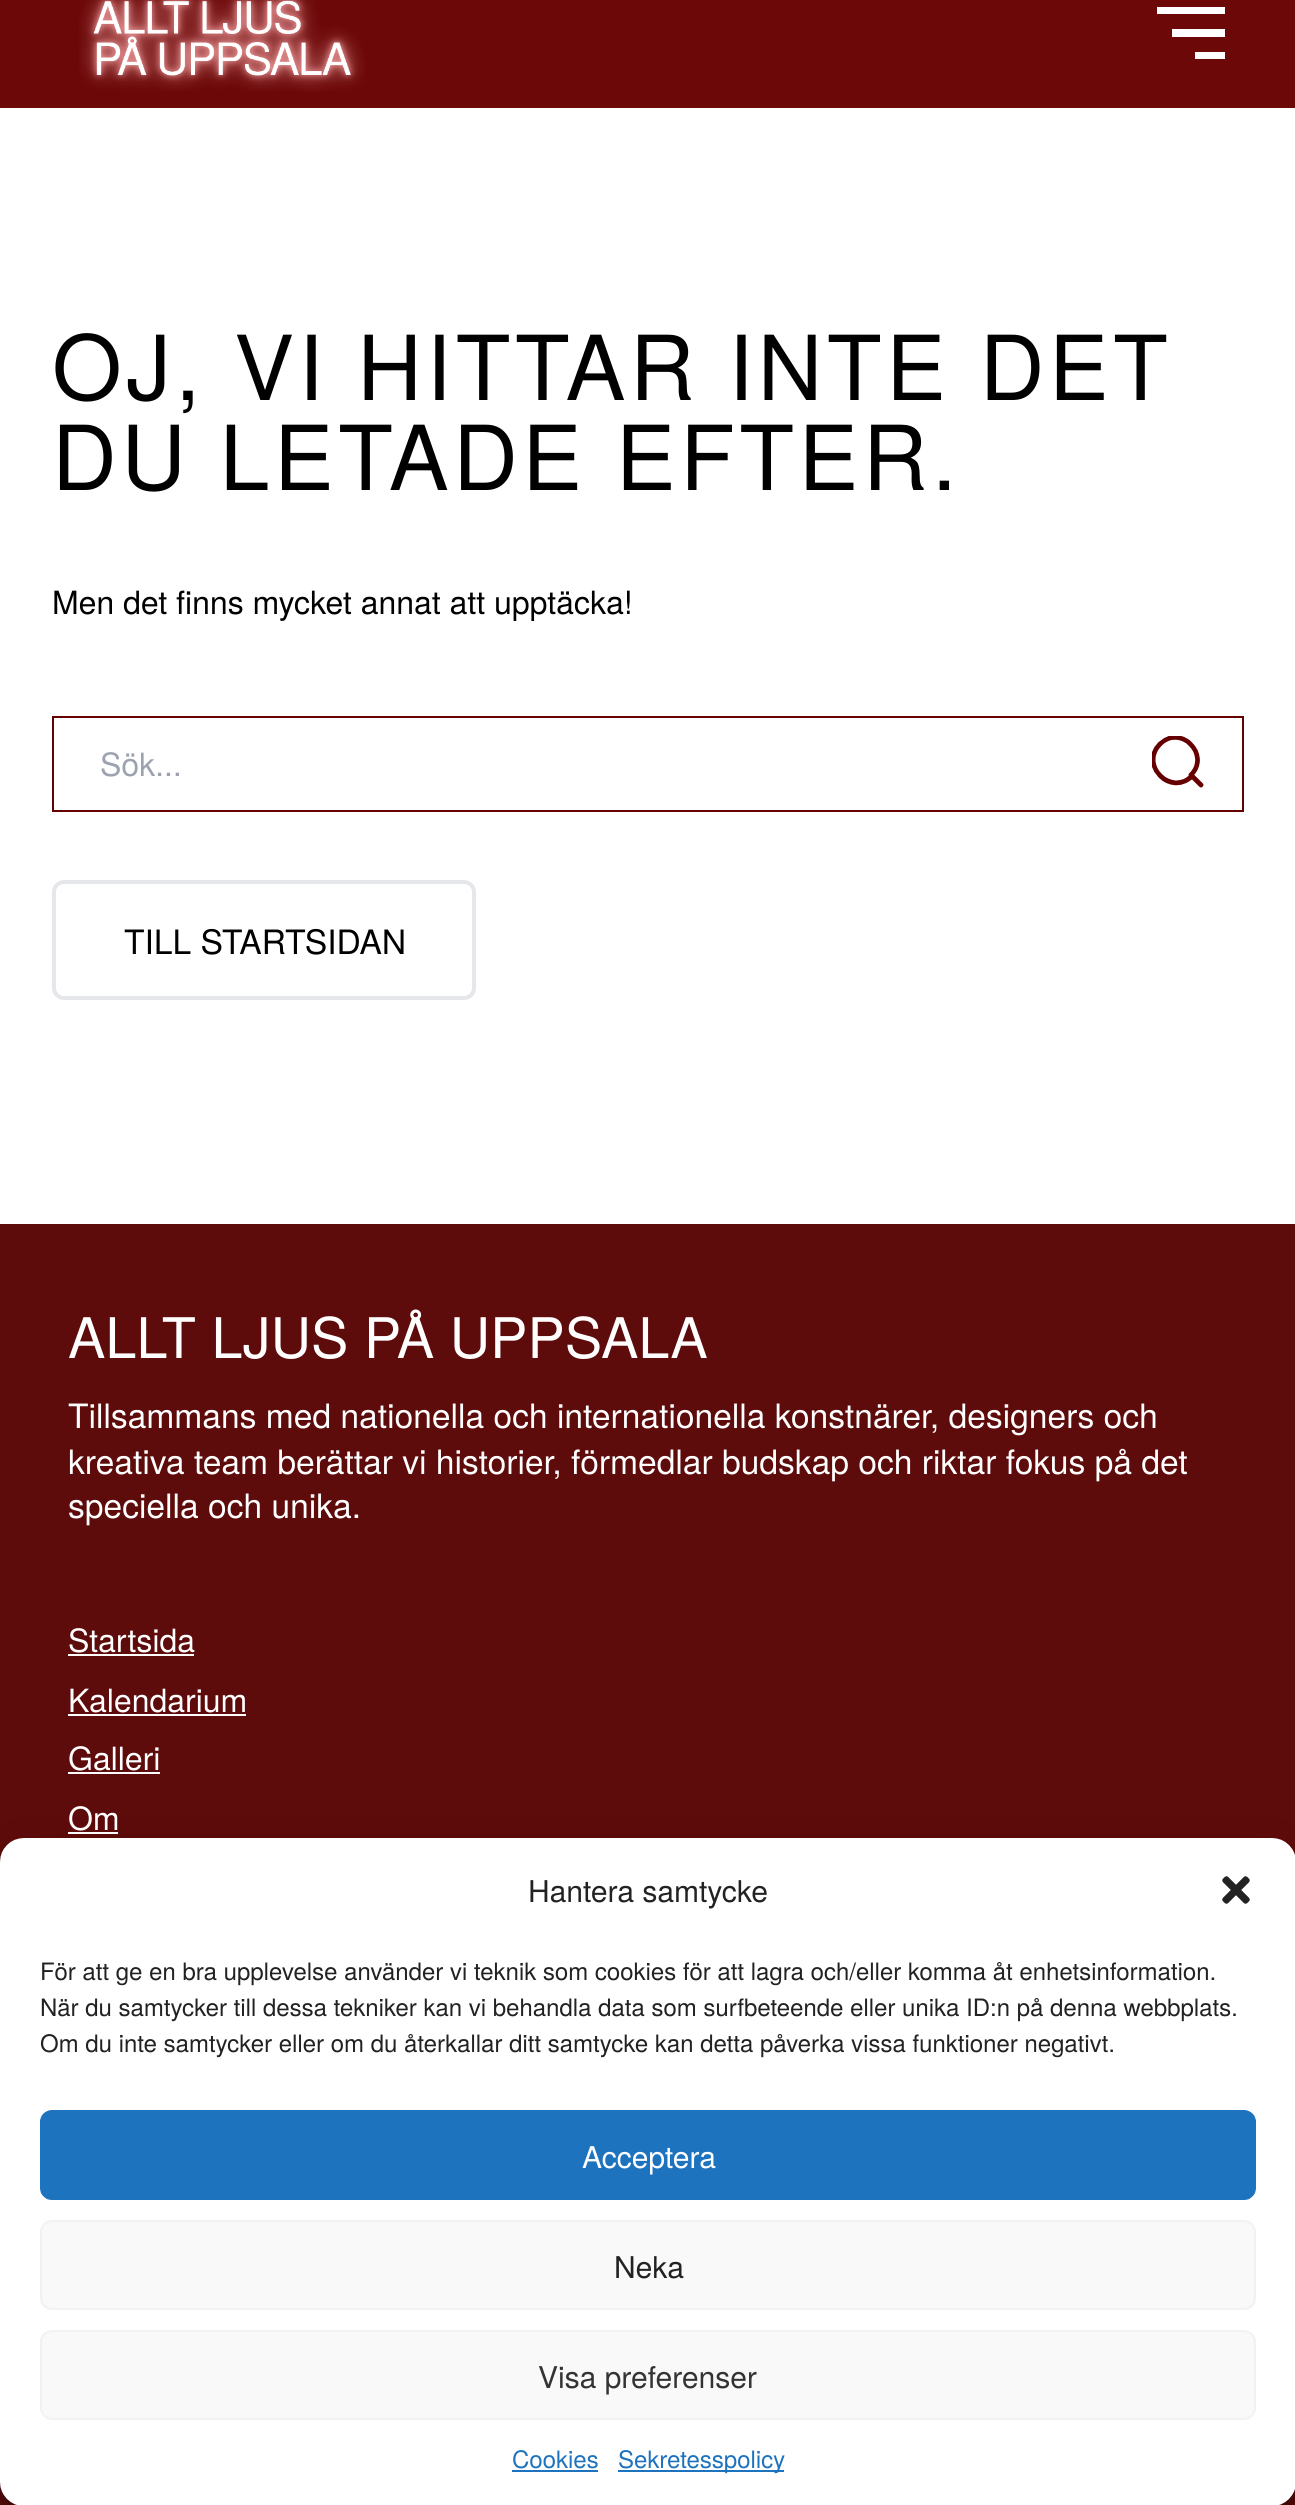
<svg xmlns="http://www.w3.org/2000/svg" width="1295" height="2505">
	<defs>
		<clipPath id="clip1"><rect x="1152" y="736" width="56" height="56" /></clipPath>
	</defs>
	<rect width="100%" height="100%" fill="#FFFFFF" />
	<rect x="0" y="0" width="1295" height="108" fill="#6C0808" />
	<image x="79" y="0" width="286" height="92" href="assets/img1.png" />
	<rect x="1157" y="7" width="68" height="7" fill="#FFFFFF" />
	<rect x="1172" y="29" width="53" height="8" fill="#FFFFFF" />
	<rect x="1195" y="52" width="30" height="7" fill="#FFFFFF" />
	<image x="55" y="333" width="1112" height="81" href="assets/img2.png" />
	<image x="59" y="424" width="890" height="68" href="assets/img3.png" />
	<image x="54" y="590" width="576" height="31" href="assets/img4.png" />
	<rect x="53" y="717" width="1190" height="94" fill="none" stroke="#660000" stroke-width="2" />
	<image x="101" y="752" width="78" height="25" href="assets/img5.png" />
	<g clip-path="url(#clip1)">
		<path d="M1201 785L1191 775M1191 775C1211 754.5 1180.5 724 1160 744C1139 765 1171 797 1192 776Z" fill="none" stroke="#660000" stroke-width="4.7" stroke-linecap="round" stroke-linejoin="round" />
	</g>
	<rect x="54" y="882" width="420" height="116" rx="10" fill="none" stroke="#E5E7EB" stroke-width="4" />
	<image x="124" y="928" width="280" height="27" href="assets/img6.png" />
	<rect x="0" y="1224" width="1295" height="1281" fill="#5E0B0B" />
	<image x="69" y="1309" width="638" height="50" href="assets/img7.png" />
	<image x="68" y="1403" width="1088" height="33" href="assets/img8.png" />
	<image x="69" y="1448" width="1118" height="34" href="assets/img9.png" />
	<image x="69" y="1493" width="290" height="33" href="assets/img10.png" />
	<image x="69" y="1628" width="126" height="25" href="assets/img11.png" />
	<rect x="68" y="1654" width="126" height="2" fill="#FFFFFF" />
	<image x="70" y="1688" width="175" height="25" href="assets/img12.png" />
	<rect x="68" y="1714" width="178" height="2" fill="#FFFFFF" />
	<image x="69" y="1746" width="90" height="25" href="assets/img13.png" />
	<rect x="68" y="1772" width="92" height="2" fill="#FFFFFF" />
	<image x="69" y="1806" width="49" height="25" href="assets/img14.png" />
	<rect x="68" y="1832" width="50" height="2" fill="#FFFFFF" />
	<rect x="0" y="1850" width="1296" height="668" rx="24" fill="#000000" fill-opacity="0.23" filter="blur(6px)" />
	<rect x="0" y="1858" width="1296" height="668" rx="24" fill="#000000" fill-opacity="0.19" filter="blur(20px)" />
	<rect x="0" y="1838" width="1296" height="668" rx="24" fill="#FFFFFF" />
	<image x="530" y="1880" width="237" height="29" href="assets/img15.png" />
	<image x="1222" y="1876" width="28" height="28" href="assets/img16.png" />
	<image x="42" y="1962" width="1173" height="24" href="assets/img17.png" />
	<image x="41" y="1998" width="1195" height="24" href="assets/img18.png" />
	<image x="40" y="2034" width="1073" height="24" href="assets/img19.png" />
	<rect x="41" y="2111" width="1214" height="88" rx="11" fill="#1E73BE" stroke="#1E73BE" stroke-width="2" />
	<image x="582" y="2146" width="134" height="29" href="assets/img20.png" />
	<rect x="41" y="2221" width="1214" height="88" rx="11" fill="#F9F9F9" stroke="#F2F2F2" stroke-width="2" />
	<image x="616" y="2256" width="68" height="23" href="assets/img21.png" />
	<rect x="41" y="2331" width="1214" height="88" rx="11" fill="#F9F9F9" stroke="#F2F2F2" stroke-width="2" />
	<image x="539" y="2366" width="218" height="29" href="assets/img22.png" />
	<image x="513" y="2450" width="85" height="19" href="assets/img23.png" />
	<rect x="512" y="2470" width="86" height="2" fill="#1E73BE" />
	<rect x="618" y="2470" width="166" height="2" fill="#1E73BE" />
	<image x="619" y="2450" width="166" height="24" href="assets/img24.png" />
</svg>
